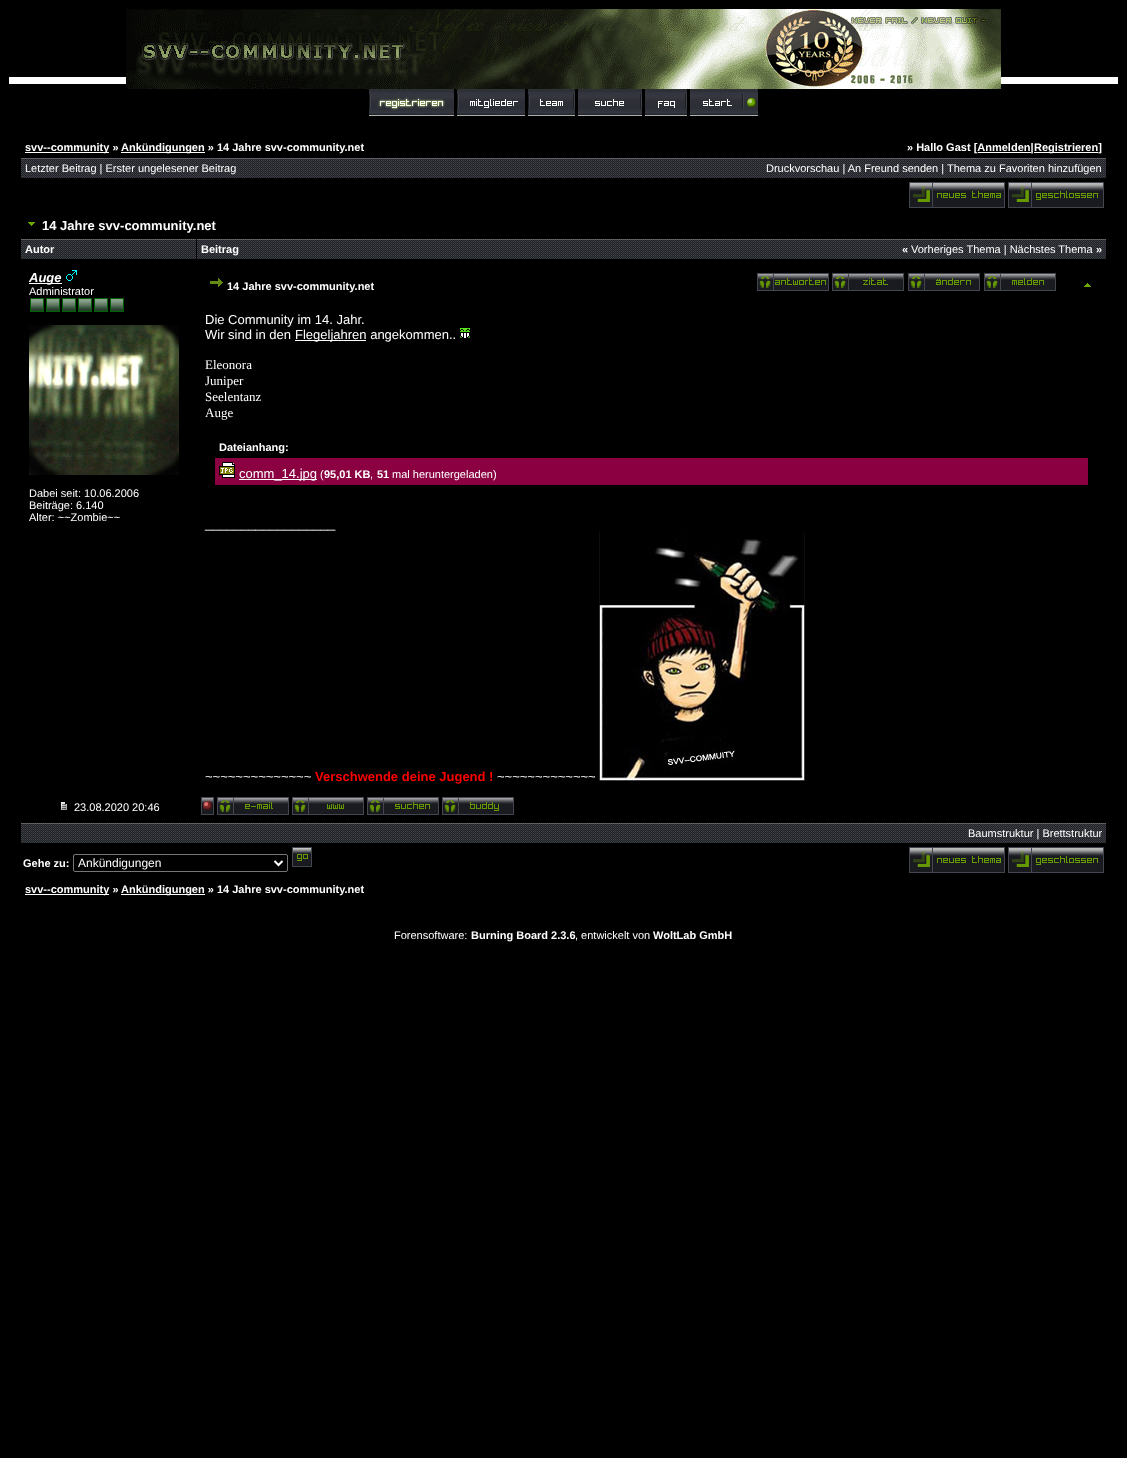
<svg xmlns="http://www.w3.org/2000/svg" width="1127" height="1458">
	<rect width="100%" height="100%" fill="#000000" />
	<rect x="9" y="77" width="1109" height="7" fill="#FFFFFF" />
	<image x="126" y="9" width="875" height="80" href="assets/img1.png" />
	<image x="369" y="89" width="85" height="27" href="assets/img2.png" />
	<image x="457" y="89" width="68" height="27" href="assets/img3.png" />
	<image x="528" y="89" width="47" height="27" href="assets/img4.png" />
	<image x="578" y="89" width="64" height="27" href="assets/img5.png" />
	<image x="645" y="89" width="42" height="27" href="assets/img6.png" />
	<image x="690" y="89" width="68" height="27" href="assets/img7.png" />
	<rect x="25" y="152" width="84" height="1" fill="#FFFFFF" />
	<text x="25" y="151" font-family="Liberation Sans" font-size="11" font-weight="700" fill="#FFFFFF">svv--community »</text>
	<rect x="121" y="152" width="84" height="1" fill="#FFFFFF" />
	<g font-family="Liberation Sans" font-size="11" font-weight="700" fill="#FFFFFF">
		<text x="121" y="151">Ankündigungen » 14 Jahre svv-community.net</text>
		<text x="907" y="151">» Hallo Gast [Anmelden|</text>
	</g>
	<rect x="978" y="152" width="53" height="1" fill="#FFFFFF" />
	<rect x="1034" y="152" width="64" height="1" fill="#FFFFFF" />
	<text x="1034" y="151" font-family="Liberation Sans" font-size="11" font-weight="700" fill="#FFFFFF">Registrieren]</text>
	<image x="21" y="158" width="1085" height="20" href="assets/img8.png" />
	<g font-family="Liberation Sans" font-size="11" fill="#FFFFFF">
		<text x="25" y="172">Letzter Beitrag | Erster ungelesener Beitrag</text>
		<text x="766" y="172">Druckvorschau | An Freund senden | Thema zu Favoriten hinzufügen</text>
	</g>
	<image x="909" y="182" width="96" height="26" href="assets/img9.png" />
	<image x="1008" y="182" width="96" height="26" href="assets/img10.png" />
	<image x="28" y="222" width="7" height="4" href="assets/img11.png" />
	<text x="42" y="230" font-family="Liberation Sans" font-size="13" font-weight="700" fill="#FFFFFF">14 Jahre svv-community.net</text>
	<image x="21" y="239" width="175" height="20" href="assets/img12.png" />
	<text x="25" y="253" font-family="Liberation Sans" font-size="11" font-weight="700" fill="#FFFFFF">Autor</text>
	<image x="197" y="239" width="909" height="20" href="assets/img13.png" />
	<g font-family="Liberation Sans" font-size="11" font-weight="700" fill="#FFFFFF">
		<text x="201" y="253">Beitrag</text>
		<text x="902" y="253">«</text>
	</g>
	<text x="911" y="253" font-family="Liberation Sans" font-size="11" fill="#FFFFFF">Vorheriges Thema | Nächstes Thema</text>
	<text x="1096" y="253" font-family="Liberation Sans" font-size="11" font-weight="700" fill="#FFFFFF">»</text>
	<rect x="29" y="283" width="33" height="1" fill="#FFFFFF" />
	<text x="29" y="282" font-family="Liberation Sans" font-size="13" font-weight="700" font-style="italic" fill="#FFFFFF">Auge</text>
	<image x="66" y="270" width="11" height="11" href="assets/img14.png" />
	<text x="29" y="295" font-family="Liberation Sans" font-size="11" fill="#FFFFFF">Administrator</text>
	<image x="30" y="298" width="14" height="14" href="assets/img15.png" />
	<image x="46" y="298" width="14" height="14" href="assets/img15.png" />
	<image x="62" y="298" width="14" height="14" href="assets/img15.png" />
	<image x="78" y="298" width="14" height="14" href="assets/img15.png" />
	<image x="94" y="298" width="14" height="14" href="assets/img15.png" />
	<image x="110" y="298" width="14" height="14" href="assets/img15.png" />
	<image x="29" y="325" width="150" height="150" href="assets/img16.png" />
	<g font-family="Liberation Sans" font-size="11" fill="#FFFFFF">
		<text x="29" y="497">Dabei seit: 10.06.2006</text>
		<text x="29" y="509">Beiträge: 6.140</text>
		<text x="29" y="521">Alter: ~~Zombie~~</text>
	</g>
	<image x="210" y="278" width="13" height="9" href="assets/img17.png" />
	<text x="227" y="290" font-family="Liberation Sans" font-size="11" font-weight="700" fill="#FFFFFF">14 Jahre svv-community.net</text>
	<image x="757" y="273" width="72" height="18" href="assets/img18.png" />
	<image x="832" y="273" width="72" height="18" href="assets/img19.png" />
	<image x="908" y="273" width="72" height="18" href="assets/img20.png" />
	<image x="984" y="273" width="72" height="18" href="assets/img21.png" />
	<image x="1084" y="283" width="7" height="4" href="assets/img22.png" />
	<g font-family="Liberation Sans" font-size="13" fill="#FFFFFF">
		<text x="205" y="324">Die Community im 14. Jahr.</text>
		<text x="205" y="339">Wir sind in den</text>
	</g>
	<rect x="295" y="340" width="71" height="1" fill="#FFFFFF" />
	<text x="295" y="339" font-family="Liberation Sans" font-size="13" fill="#FFFFFF">Flegeljahren angekommen..</text>
	<image x="460" y="328" width="10" height="10" href="assets/img23.png" />
	<g font-family="Liberation Serif" font-size="13" fill="#FFFFFF">
		<text x="205" y="369">Eleonora</text>
		<text x="205" y="385">Juniper</text>
		<text x="205" y="401">Seelentanz</text>
		<text x="205" y="417">Auge</text>
	</g>
	<text x="219" y="451" font-family="Liberation Sans" font-size="11" font-weight="700" fill="#FFFFFF">Dateianhang:</text>
	<rect x="215" y="458" width="873" height="27" fill="#8A0041" />
	<image x="219" y="462" width="16" height="16" href="assets/img24.png" />
	<rect x="239" y="479" width="78" height="1" fill="#FFFFFF" />
	<text x="239" y="478" font-family="Liberation Sans" font-size="13" fill="#FFFFFF">comm_14.jpg</text>
	<text x="320" y="478" font-family="Liberation Sans" font-size="11" fill="#FFFFFF">(</text>
	<text x="324" y="478" font-family="Liberation Sans" font-size="11" font-weight="700" fill="#FFFFFF">95,01 KB</text>
	<text x="370" y="478" font-family="Liberation Sans" font-size="11" fill="#FFFFFF">,</text>
	<text x="377" y="478" font-family="Liberation Sans" font-size="11" font-weight="700" fill="#FFFFFF">51</text>
	<text x="392" y="478" font-family="Liberation Sans" font-size="11" fill="#FFFFFF">mal heruntergeladen)</text>
	<g font-family="Liberation Sans" font-size="13" fill="#FFFFFF">
		<text x="205" y="528">__________________</text>
		<text x="205" y="781">~~~~~~~~~~~~~~</text>
	</g>
	<text x="315" y="781" font-family="Liberation Sans" font-size="13" font-weight="700" fill="#FF0000">Verschwende deine Jugend !</text>
	<text x="497" y="781" font-family="Liberation Sans" font-size="13" fill="#FFFFFF">~~~~~~~~~~~~~</text>
	<image x="599" y="531" width="206" height="250" href="assets/img25.png" />
	<image x="61" y="802" width="6" height="8" href="assets/img26.png" />
	<text x="74" y="811" font-family="Liberation Sans" font-size="11" fill="#FFFFFF">23.08.2020 20:46</text>
	<image x="201" y="797" width="13" height="18" href="assets/img27.png" />
	<image x="217" y="797" width="72" height="18" href="assets/img28.png" />
	<image x="292" y="797" width="72" height="18" href="assets/img29.png" />
	<image x="367" y="797" width="72" height="18" href="assets/img30.png" />
	<image x="442" y="797" width="72" height="18" href="assets/img31.png" />
	<image x="21" y="823" width="1085" height="20" href="assets/img8.png" />
	<text x="968" y="837" font-family="Liberation Sans" font-size="11" fill="#FFFFFF">Baumstruktur | Brettstruktur</text>
	<text x="23" y="867" font-family="Liberation Sans" font-size="11" font-weight="700" fill="#FFFFFF">Gehe zu:</text>
	<rect x="73.5" y="854.5" width="214" height="17" rx="1.5" fill="none" stroke="#767676" />
	<path d="M274.5 861L278.5 865L282.5 861" fill="none" stroke="#FFFFFF" stroke-width="2" />
	<text x="78" y="867" font-family="Liberation Sans" font-size="12" fill="#FFFFFF">Ankündigungen</text>
	<image x="292" y="847" width="20" height="20" href="assets/img32.png" />
	<image x="909" y="847" width="96" height="26" href="assets/img9.png" />
	<image x="1008" y="847" width="96" height="26" href="assets/img10.png" />
	<rect x="25" y="894" width="84" height="1" fill="#FFFFFF" />
	<text x="25" y="893" font-family="Liberation Sans" font-size="11" font-weight="700" fill="#FFFFFF">svv--community »</text>
	<rect x="121" y="894" width="84" height="1" fill="#FFFFFF" />
	<text x="121" y="893" font-family="Liberation Sans" font-size="11" font-weight="700" fill="#FFFFFF">Ankündigungen » 14 Jahre svv-community.net</text>
	<text x="394" y="939" font-family="Liberation Sans" font-size="11" fill="#FFFFFF">Forensoftware:</text>
	<text x="471" y="939" font-family="Liberation Sans" font-size="11" font-weight="700" fill="#FFFFFF">Burning Board 2.3.6</text>
	<text x="575" y="939" font-family="Liberation Sans" font-size="11" fill="#FFFFFF">, entwickelt von</text>
	<text x="653" y="939" font-family="Liberation Sans" font-size="11" font-weight="700" fill="#FFFFFF">WoltLab GmbH</text>
</svg>
